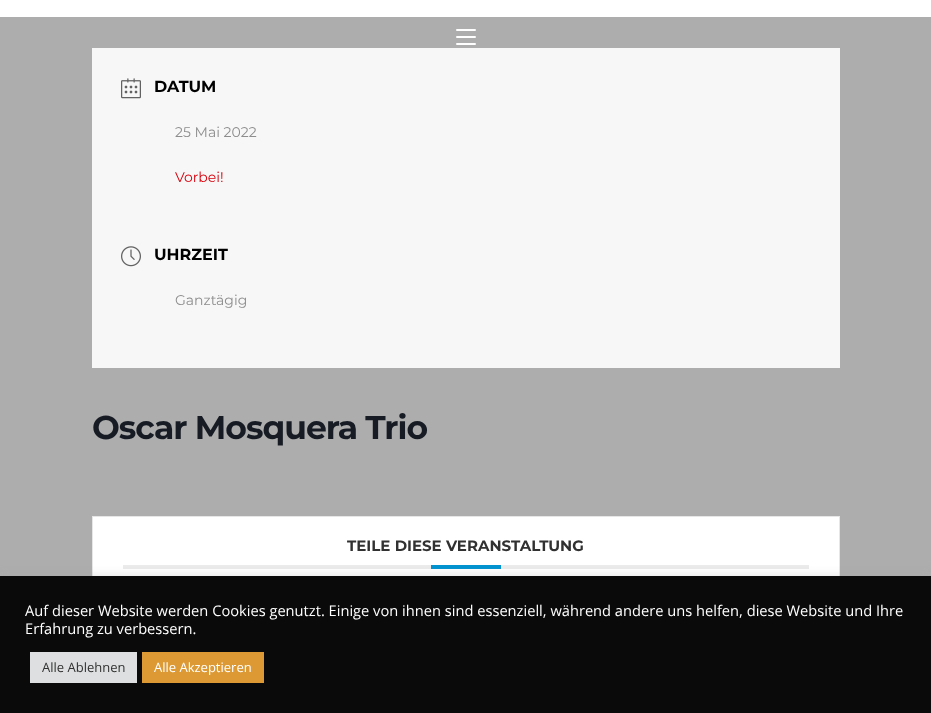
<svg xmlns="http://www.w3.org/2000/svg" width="931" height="713">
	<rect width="100%" height="100%" fill="#ADADAD" />
	<rect x="0" y="0" width="931" height="17" fill="#FFFFFF" />
	<rect x="456" y="36" width="20" height="2" rx="1" fill="#FFFFFF" />
	<rect x="456" y="29" width="20" height="2" rx="1" fill="#FFFFFF" />
	<rect x="456" y="43" width="20" height="2" rx="1" fill="#FFFFFF" />
	<rect x="92" y="48" width="748" height="320" fill="#F7F7F7" />
	<image x="121" y="78" width="20" height="21" href="assets/img1.png" />
	<text x="154" y="92" font-family="Montserrat" font-size="16" font-weight="700" fill="#000000">DATUM</text>
	<text x="175" y="137" font-family="Montserrat" font-size="14" fill="#8D8D8D">25 Mai 2022</text>
	<text x="175" y="182" font-family="Montserrat" font-size="14" fill="#D8000C">Vorbei!</text>
	<image x="121" y="246" width="20" height="21" href="assets/img2.png" />
	<text x="154" y="260" font-family="Montserrat" font-size="16" font-weight="700" fill="#000000">UHRZEIT</text>
	<text x="175" y="305" font-family="Montserrat" font-size="14" fill="#8D8D8D">Ganztägig</text>
	<text x="92" y="439" font-family="Montserrat" font-size="33" font-weight="700" letter-spacing="-1" fill="#171C24">Oscar Mosquera Trio</text>
	<rect x="93" y="517" width="746" height="59" fill="#FFFFFF" />
	<rect x="92.5" y="516.5" width="747" height="163" fill="none" stroke="#E6E6E6" />
	<rect x="123" y="565" width="686" height="4" fill="#EBEBEB" />
	<text x="347" y="551" font-family="Montserrat" font-size="15" font-weight="700" fill="#313131">TEILE DIESE VERANSTALTUNG</text>
	<rect x="431" y="565" width="70" height="4" fill="#0093D0" />
	<rect x="0" y="575" width="931" height="137" fill="#ACABAB" fill-opacity="0.3" filter="blur(5px)" />
	<rect x="0" y="576" width="931" height="137" fill="#0A0A0A" />
	<g font-family="Open Sans" font-size="14.67" fill="#FFFFFF">
		<text x="25" y="616">Auf dieser Website werden Cookies genutzt. Einige von ihnen sind essenziell, während andere uns helfen, diese Website und Ihre</text>
		<text x="25" y="634">Erfahrung zu verbessern.</text>
	</g>
	<rect x="30" y="652" width="107" height="31" fill="#DEDFE0" />
	<text x="42" y="672" font-family="Open Sans" font-size="13" fill="#313131">Alle Ablehnen</text>
	<rect x="142" y="652" width="122" height="31" fill="#DD9933" />
	<text x="154" y="672" font-family="Open Sans" font-size="13" fill="#FFFFFF">Alle Akzeptieren</text>
</svg>
